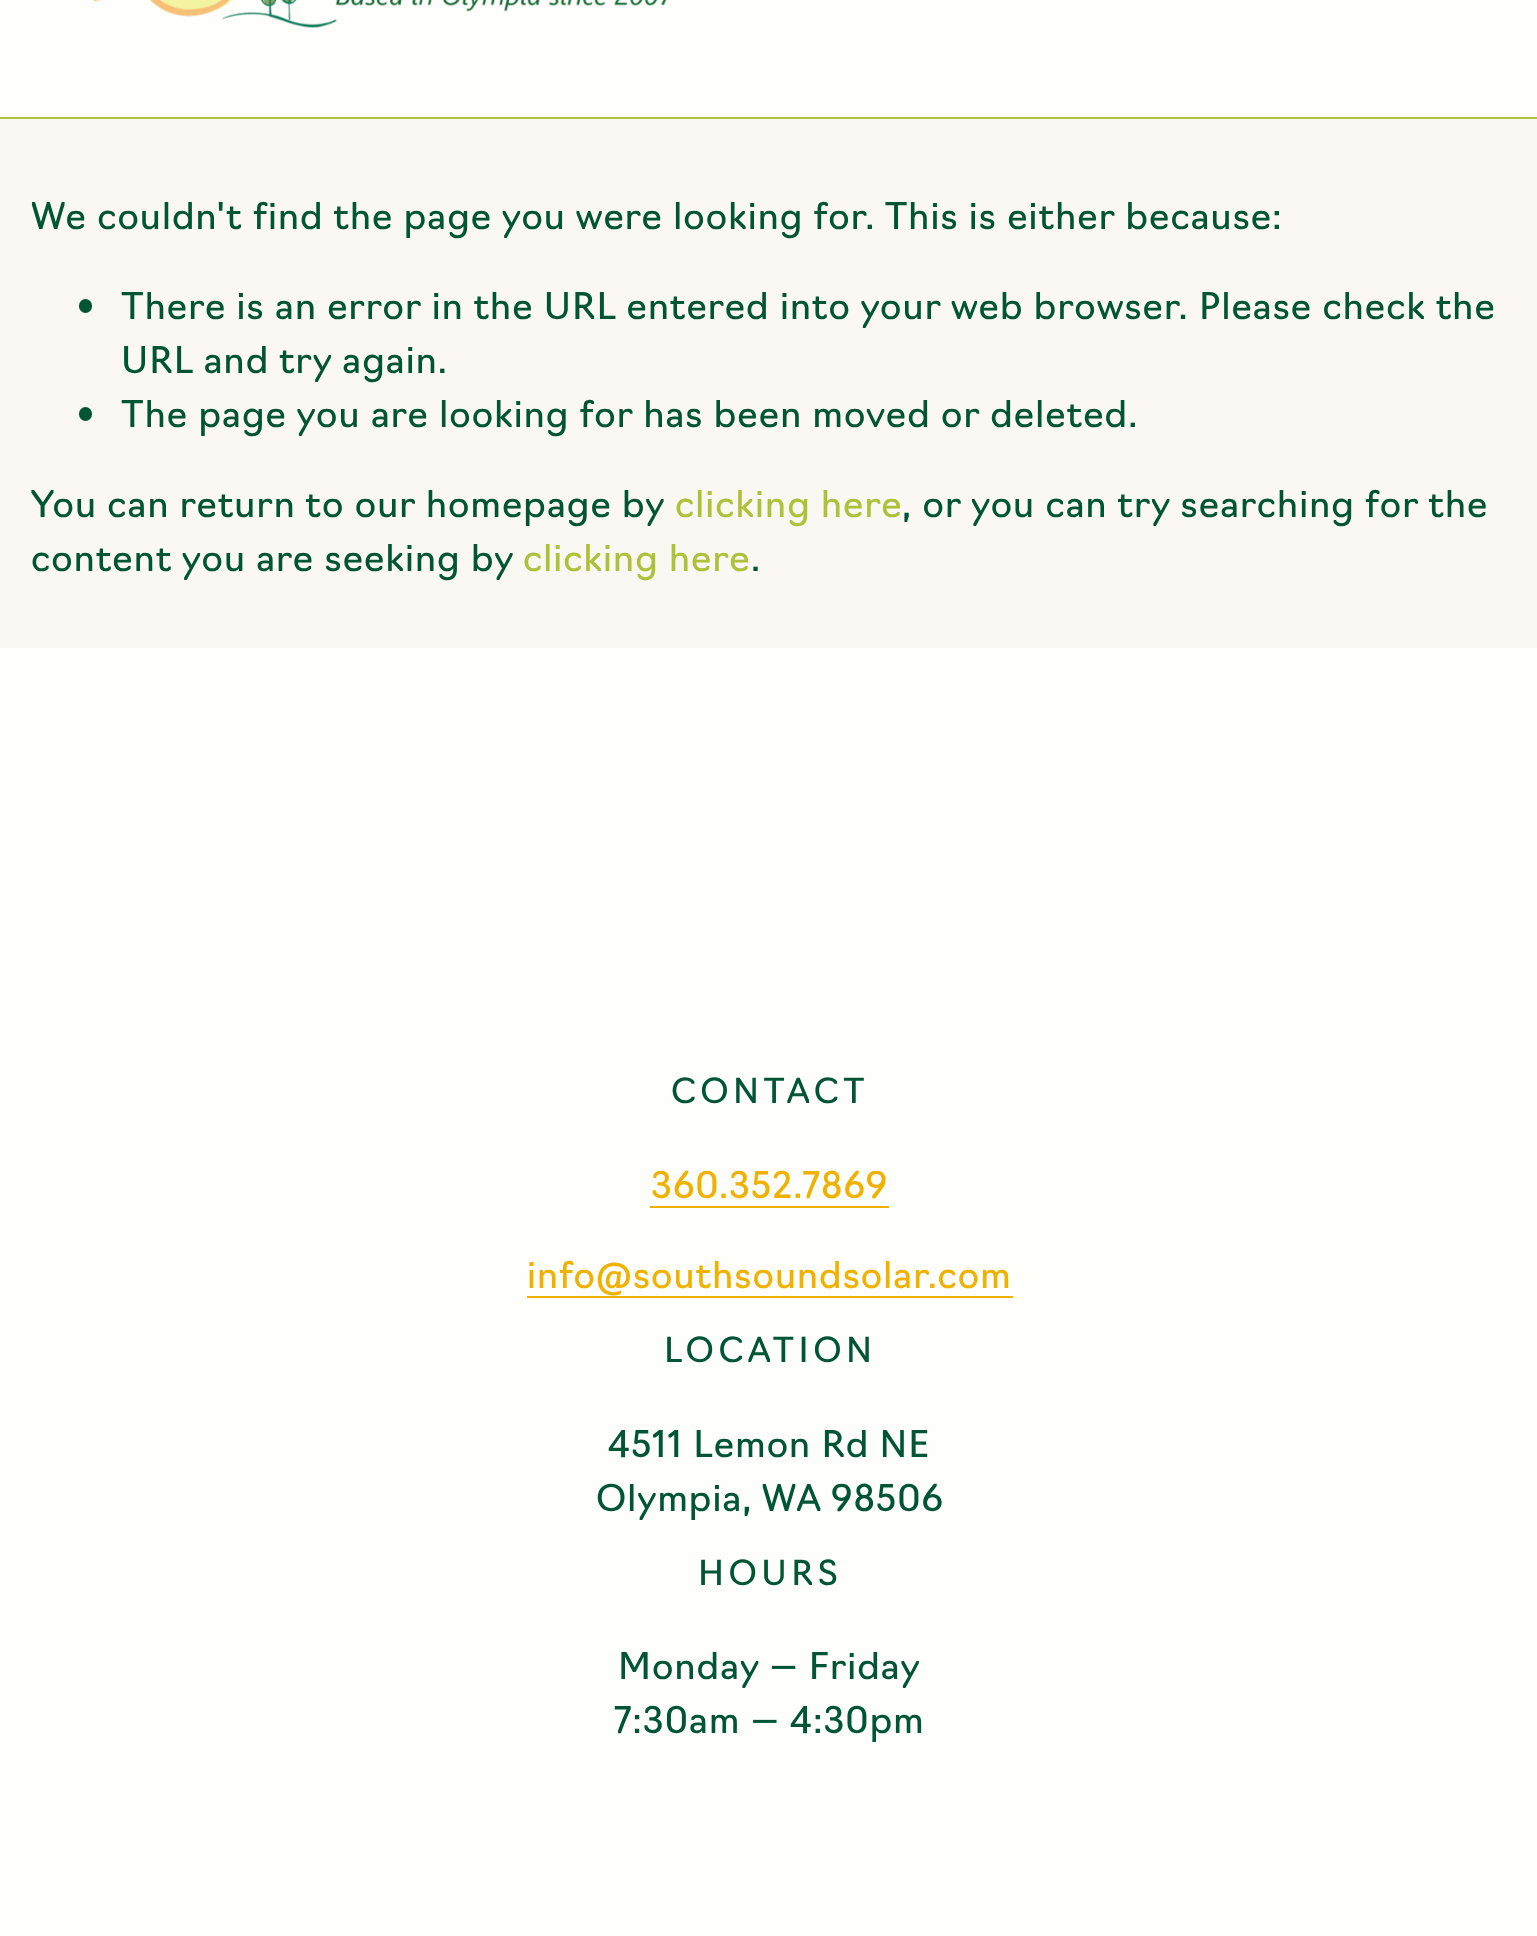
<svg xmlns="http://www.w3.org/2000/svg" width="1537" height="1936">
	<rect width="100%" height="100%" fill="#FBF7F3" />
	<rect x="0" y="0" width="1537" height="117" fill="#FEFEFA" />
	<image x="93" y="0" width="574" height="28" href="assets/img1.png" />
	<rect x="0" y="117" width="1537" height="2" fill="#AFC238" />
	<text x="31" y="229" font-family="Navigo" font-size="36" letter-spacing="1.08" fill="#005632">We couldn't find the page you were looking for. This is either because:</text>
	<rect x="79" y="299" width="13" height="14" rx="6.5" fill="#005632" />
	<g font-family="Navigo" font-size="36" letter-spacing="1.08" fill="#005632">
		<text x="121" y="319">There is an error in the URL entered into your web browser. Please check the</text>
		<text x="121" y="373">URL and try again.</text>
	</g>
	<rect x="79" y="407" width="13" height="14" rx="6.5" fill="#005632" />
	<g font-family="Navigo" font-size="36" letter-spacing="1.08" fill="#005632">
		<text x="121" y="427">The page you are looking for has been moved or deleted.</text>
		<text x="31" y="517">You can return to our homepage by</text>
	</g>
	<text x="675" y="517" font-family="Navigo" font-size="36" letter-spacing="1.08" fill="#AEC138">clicking here</text>
	<g font-family="Navigo" font-size="36" letter-spacing="1.08" fill="#005632">
		<text x="902" y="517">, or you can try searching for the</text>
		<text x="31" y="571">content you are seeking by</text>
	</g>
	<text x="523" y="571" font-family="Navigo" font-size="36" letter-spacing="1.08" fill="#AEC138">clicking here</text>
	<text x="751" y="571" font-family="Navigo" font-size="36" letter-spacing="1.08" fill="#005632">.</text>
	<rect x="0" y="648" width="1537" height="1288" fill="#FEFEFA" />
	<text x="671" y="1103" font-family="Navigo" font-size="33.75" letter-spacing="4.5" fill="#005632">CONTACT</text>
	<text x="651" y="1198" font-family="Navigo" font-size="36" letter-spacing="1.08" fill="#F0B100">360.352.7869</text>
	<rect x="650" y="1206" width="239" height="2" fill="#F0B100" />
	<text x="527" y="1288" font-family="Navigo" font-size="36" letter-spacing="1.08" fill="#F0B100">info@southsoundsolar.com</text>
	<rect x="527" y="1296" width="486" height="2" fill="#F0B100" />
	<text x="664" y="1362" font-family="Navigo" font-size="33.75" letter-spacing="4.5" fill="#005632">LOCATION</text>
	<g font-family="Navigo" font-size="36" letter-spacing="1.08" fill="#005632">
		<text x="608" y="1457">4511 Lemon Rd NE</text>
		<text x="596" y="1511">Olympia, WA 98506</text>
	</g>
	<text x="698" y="1585" font-family="Navigo" font-size="33.75" letter-spacing="4.5" fill="#005632">HOURS</text>
	<g font-family="Navigo" font-size="36" letter-spacing="1.08" fill="#005632">
		<text x="618" y="1679">Monday — Friday</text>
		<text x="614" y="1733">7:30am — 4:30pm</text>
	</g>
</svg>
